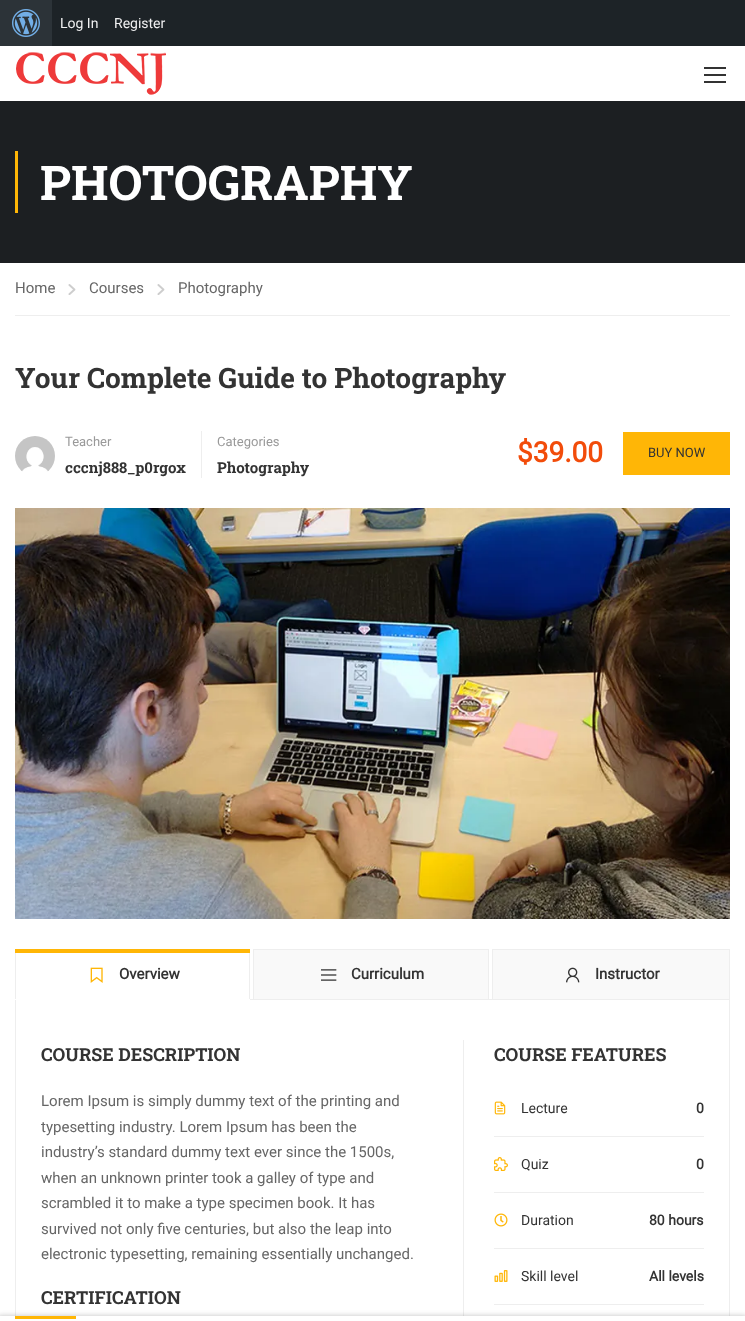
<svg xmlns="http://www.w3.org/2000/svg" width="745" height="1321">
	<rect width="100%" height="100%" fill="#FFFFFF" />
	<rect x="52" y="0" width="693" height="46" fill="#1D2327" />
	<rect x="0" y="0" width="52" height="46" fill="#2C3338" />
	<image x="12" y="9" width="28" height="28" href="assets/img1.png" />
	<g font-family="Roboto" font-size="14" fill="#F0F0F1">
		<text x="60" y="28">Log In</text>
		<text x="114" y="28">Register</text>
	</g>
	<image x="16" y="52" width="150" height="43" href="assets/img2.png" />
	<rect x="704" y="67" width="22" height="2" fill="#333333" />
	<rect x="704" y="74" width="22" height="2" fill="#333333" />
	<rect x="704" y="81" width="22" height="2" fill="#333333" />
	<rect x="0" y="101" width="745" height="162" fill="#1C1F22" />
	<rect x="15" y="151" width="3" height="62" fill="#FFB606" />
	<text x="40" y="200" font-family="Roboto Slab" font-size="48" font-weight="700" fill="#FFFFFF">PHOTOGRAPHY</text>
	<rect x="15" y="315" width="715" height="1" fill="#EEEEEE" />
	<text x="15" y="293" font-family="Roboto" font-size="15" fill="#666666">Home</text>
	<image x="68" y="284" width="8" height="11" href="assets/img3.png" />
	<text x="89" y="293" font-family="Roboto" font-size="15" fill="#666666">Courses</text>
	<image x="157" y="284" width="8" height="11" href="assets/img3.png" />
	<text x="178" y="293" font-family="Roboto" font-size="15" fill="#666666">Photography</text>
	<text x="15" y="388" font-family="Roboto Slab" font-size="28" font-weight="700" fill="#333333">Your Complete Guide to Photography</text>
	<rect x="201" y="431" width="1" height="47" fill="#EEEEEE" />
	<image x="15" y="436" width="40" height="36" href="assets/img4.png" />
	<text x="65" y="446" font-family="Roboto" font-size="13" fill="#999999">Teacher</text>
	<text x="65" y="473" font-family="Roboto Slab" font-size="15" font-weight="700" fill="#333333">cccnj888_p0rgox</text>
	<text x="217" y="446" font-family="Roboto" font-size="13" fill="#999999">Categories</text>
	<text x="217" y="473" font-family="Roboto Slab" font-size="15" font-weight="700" fill="#333333">Photography</text>
	<text x="517" y="462" font-family="Roboto" font-size="28" font-weight="700" fill="#F24C0A">$39.00</text>
	<rect x="623" y="432" width="107" height="43" fill="#FFB606" />
	<text x="648" y="457" font-family="Roboto" font-size="13" fill="#333333">BUY NOW</text>
	<image x="15" y="508" width="715" height="411" href="assets/img5.png" />
	<rect x="250" y="999" width="480" height="1" fill="#EEEEEE" />
	<rect x="249" y="949" width="1" height="50" fill="#EEEEEE" />
	<rect x="15" y="949" width="1" height="50" fill="#EEEEEE" />
	<rect x="15" y="949" width="235" height="4" fill="#FFB606" />
	<image x="90" y="967" width="13" height="16" href="assets/img6.png" />
	<text x="119" y="979" font-family="Roboto" font-size="15" font-weight="700" fill="#333333">Overview</text>
	<rect x="254" y="950" width="234" height="49" fill="#F9F9F9" />
	<rect x="253" y="949" width="236" height="1" fill="#EEEEEE" />
	<rect x="488" y="949" width="1" height="50" fill="#EEEEEE" />
	<rect x="253" y="949" width="1" height="50" fill="#EEEEEE" />
	<image x="321" y="969" width="16" height="12" href="assets/img7.png" />
	<text x="351" y="979" font-family="Roboto" font-size="15" font-weight="700" fill="#333333">Curriculum</text>
	<rect x="493" y="950" width="236" height="49" fill="#F9F9F9" />
	<rect x="492" y="949" width="238" height="1" fill="#EEEEEE" />
	<rect x="729" y="949" width="1" height="50" fill="#EEEEEE" />
	<rect x="492" y="949" width="1" height="50" fill="#EEEEEE" />
	<image x="566" y="967" width="14" height="16" href="assets/img8.png" />
	<text x="595" y="979" font-family="Roboto" font-size="15" font-weight="700" fill="#333333">Instructor</text>
	<rect x="729" y="1000" width="1" height="321" fill="#EEEEEE" />
	<rect x="15" y="1000" width="1" height="321" fill="#EEEEEE" />
	<rect x="463" y="1040" width="1" height="281" fill="#EEEEEE" />
	<text x="41" y="1061" font-family="Roboto Slab" font-size="18" font-weight="700" fill="#333333">COURSE DESCRIPTION</text>
	<g font-family="Roboto" font-size="15" fill="#666666">
		<text x="41" y="1106">Lorem Ipsum is simply dummy text of the printing and</text>
		<text x="41" y="1132">typesetting industry. Lorem Ipsum has been the</text>
		<text x="41" y="1157">industry’s standard dummy text ever since the 1500s,</text>
		<text x="41" y="1183">when an unknown printer took a galley of type and</text>
		<text x="41" y="1208">scrambled it to make a type specimen book. It has</text>
		<text x="41" y="1234">survived not only five centuries, but also the leap into</text>
		<text x="41" y="1259">electronic typesetting, remaining essentially unchanged.</text>
	</g>
	<g font-family="Roboto Slab" font-size="18" font-weight="700" fill="#333333">
		<text x="41" y="1304">CERTIFICATION</text>
		<text x="494" y="1061">COURSE FEATURES</text>
	</g>
	<rect x="494" y="1136" width="210" height="1" fill="#EEEEEE" />
	<image x="494" y="1101" width="12" height="14" href="assets/img9.png" />
	<text x="521" y="1113" font-family="Roboto" font-size="14" fill="#333333">Lecture</text>
	<text x="696" y="1113" font-family="Roboto" font-size="14" font-weight="700" fill="#333333">0</text>
	<rect x="494" y="1192" width="210" height="1" fill="#EEEEEE" />
	<image x="494" y="1157" width="14" height="14" href="assets/img10.png" />
	<text x="521" y="1169" font-family="Roboto" font-size="14" fill="#333333">Quiz</text>
	<text x="696" y="1169" font-family="Roboto" font-size="14" font-weight="700" fill="#333333">0</text>
	<rect x="494" y="1248" width="210" height="1" fill="#EEEEEE" />
	<image x="494" y="1213" width="14" height="14" href="assets/img11.png" />
	<text x="521" y="1225" font-family="Roboto" font-size="14" fill="#333333">Duration</text>
	<text x="649" y="1225" font-family="Roboto" font-size="14" font-weight="700" fill="#333333">80 hours</text>
	<rect x="494" y="1304" width="210" height="1" fill="#EEEEEE" />
	<image x="494" y="1270" width="14" height="12" href="assets/img12.png" />
	<text x="521" y="1281" font-family="Roboto" font-size="14" fill="#333333">Skill level</text>
	<text x="649" y="1281" font-family="Roboto" font-size="14" font-weight="700" fill="#333333">All levels</text>
	<rect x="-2" y="1317" width="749" height="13" fill="#2A2A2A" fill-opacity="0.4" filter="blur(3px)" />
	<rect x="0" y="1316" width="745" height="5" fill="#FFFFFF" />
	<rect x="15" y="1316" width="61" height="3" fill="#FFB606" />
</svg>
